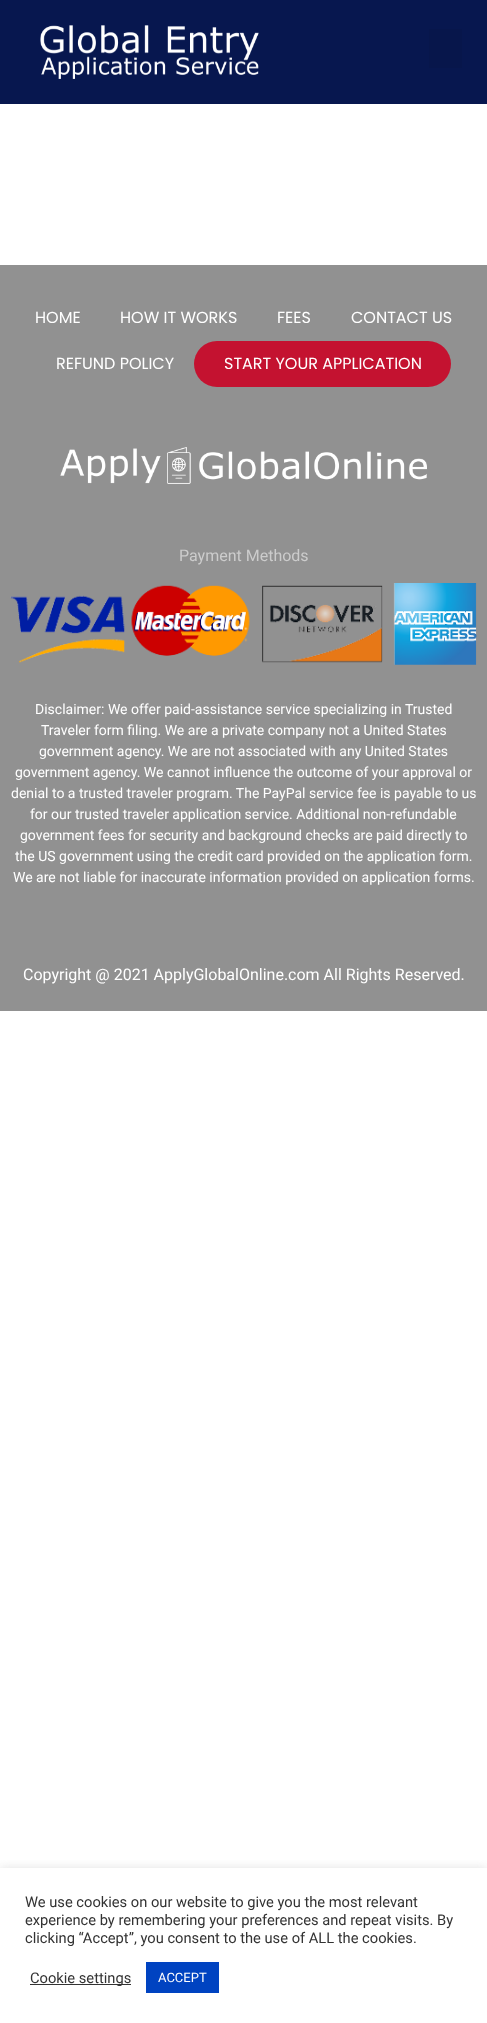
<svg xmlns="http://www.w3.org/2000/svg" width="487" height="2023">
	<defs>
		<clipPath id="clip1"><rect x="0" y="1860" width="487" height="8" /></clipPath>
	</defs>
	<rect width="100%" height="100%" fill="#FFFFFF" />
	<rect x="0" y="0" width="487" height="104" fill="#07174F" />
	<image x="40" y="25" width="219" height="54" href="assets/img1.png" />
	<rect x="429" y="29" width="33" height="39" fill="#07164B" />
	<rect x="0" y="265" width="487" height="746" fill="#919191" />
	<g font-family="Poppins" font-size="16" fill="#FFFFFF">
		<text x="35" y="323">HOME</text>
		<text x="120" y="323">HOW IT WORKS</text>
		<text x="277" y="323">FEES</text>
		<text x="351" y="323">CONTACT US</text>
		<text x="56" y="369">REFUND POLICY</text>
	</g>
	<rect x="194" y="341" width="257" height="46" rx="23" fill="#C41230" />
	<text x="224" y="369" font-family="Poppins" font-size="16" fill="#FFFFFF">START YOUR APPLICATION</text>
	<image x="60" y="447" width="367" height="37" href="assets/img2.png" />
	<text x="179" y="561" font-family="Roboto" font-size="16" fill="#CCCCCC">Payment Methods</text>
	<image x="10" y="583" width="467" height="82" href="assets/img3.png" />
	<g font-family="Roboto" font-size="14" fill="#FFFFFF">
		<text x="35" y="714">Disclaimer: We offer paid-assistance service specializing in Trusted</text>
		<text x="41" y="735">Traveler form filing. We are a private company not a United States</text>
		<text x="39" y="756">government agency. We are not associated with any United States</text>
		<text x="15" y="777">government agency. We cannot influence the outcome of your approval or</text>
		<text x="11" y="798">denial to a trusted traveler program. The PayPal service fee is payable to us</text>
		<text x="30" y="819">for our trusted traveler application service. Additional non-refundable</text>
		<text x="20" y="840">government fees for security and background checks are paid directly to</text>
		<text x="15" y="861">the US government using the credit card provided on the application form.</text>
		<text x="13" y="882">We are not liable for inaccurate information provided on application forms.</text>
	</g>
	<text x="23" y="980" font-family="Roboto" font-size="16" fill="#FFFFFF">Copyright @ 2021 ApplyGlobalOnline.com All Rights Reserved.</text>
	<g clip-path="url(#clip1)">
		<rect x="0" y="1867" width="487" height="155" fill="#ACABAB" fill-opacity="0.3" filter="blur(5px)" />
	</g>
	<g font-family="Roboto" font-size="14.7" fill="#333333">
		<text x="25" y="1907">We use cookies on our website to give you the most relevant</text>
		<text x="25" y="1925">experience by remembering your preferences and repeat visits. By</text>
		<text x="25" y="1943">clicking “Accept”, you consent to the use of ALL the cookies.</text>
	</g>
	<rect x="30" y="1984" width="101" height="1" fill="#333333" />
	<text x="30" y="1983" font-family="Roboto" font-size="14.7" fill="#333333">Cookie settings</text>
	<rect x="146" y="1962" width="73" height="31" fill="#0043C1" />
	<text x="158" y="1982" font-family="Roboto" font-size="13" fill="#FFFFFF">ACCEPT</text>
</svg>
